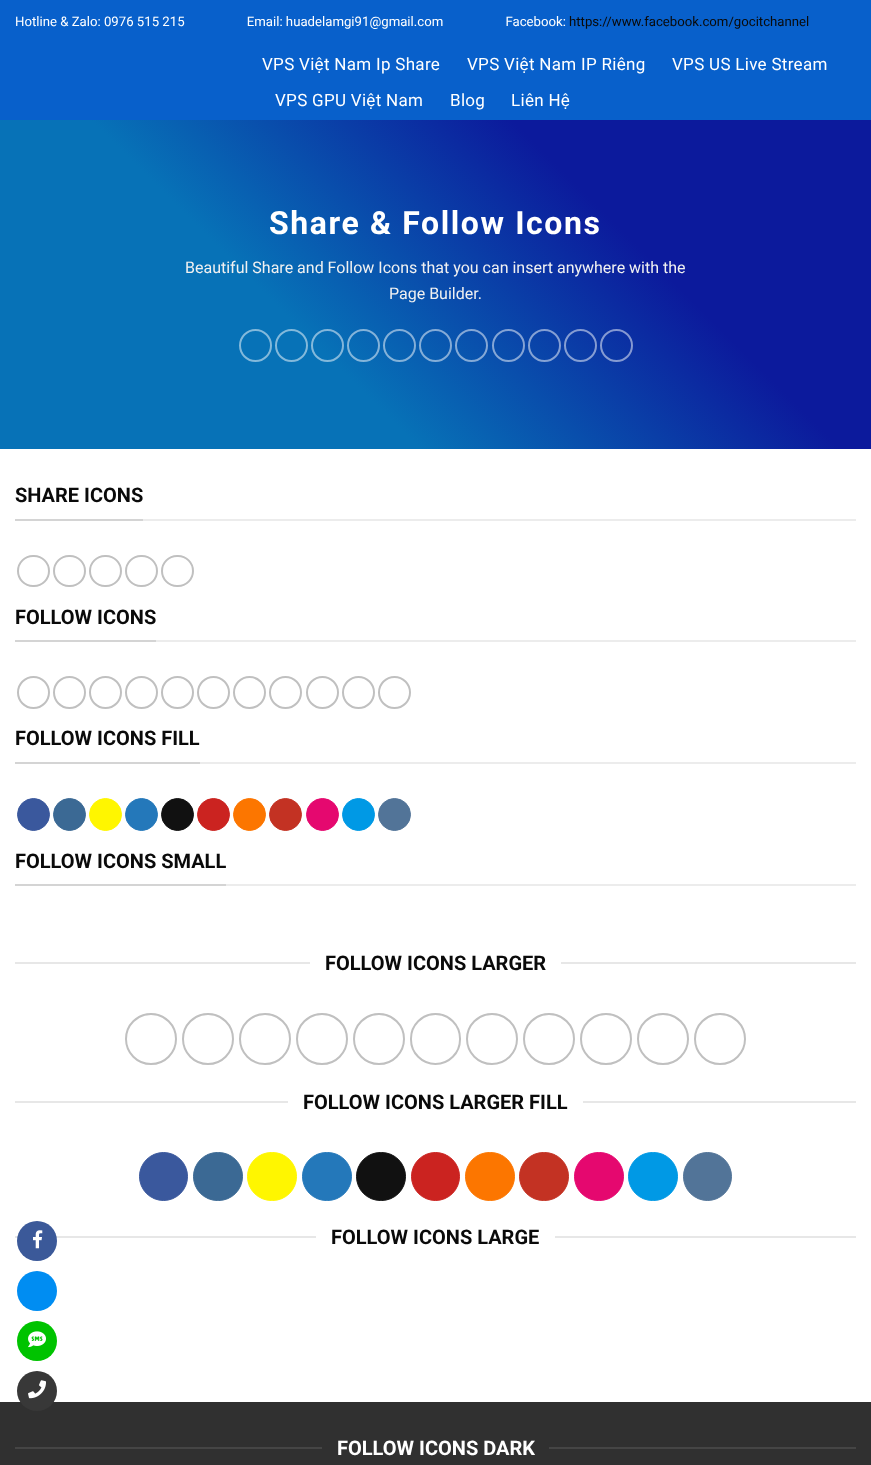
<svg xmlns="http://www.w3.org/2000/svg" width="871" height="1465">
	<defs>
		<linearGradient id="g1" gradientUnits="userSpaceOnUse" x1="136" y1="585" x2="736" y2="-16"><stop offset="0" stop-color="#0772B7" /><stop offset="0.35" stop-color="#0772B7" /><stop offset="0.7" stop-color="#0C1A9C" /><stop offset="1" stop-color="#0C1A9C" /></linearGradient>
	</defs>
	<rect width="100%" height="100%" fill="#FFFFFF" />
	<rect x="0" y="0" width="871" height="120" fill="#0860CB" />
	<text x="15" y="26" font-family="Roboto" font-size="13.2" fill="#FFFFFF" xml:space="preserve">Hotline &amp; Zalo: 0976 515 215                   Email: huadelamgi91@gmail.com                   Facebook:</text>
	<text x="569" y="26" font-family="Roboto" font-size="13.2" fill="#0A0A0A">https://www.facebook.com/gocitchannel</text>
	<g font-family="Roboto" font-size="17" letter-spacing="0.3" fill="#FFFFFF">
		<text x="262" y="70">VPS Việt Nam Ip Share</text>
		<text x="467" y="70">VPS Việt Nam IP Riêng</text>
		<text x="672" y="70">VPS US Live Stream</text>
		<text x="275" y="106">VPS GPU Việt Nam</text>
		<text x="450" y="106">Blog</text>
		<text x="511" y="106">Liên Hệ</text>
	</g>
	<rect x="0" y="120" width="871" height="329" fill="url(#g1)" />
	<text x="269" y="234" font-family="Roboto" font-size="32" font-weight="700" letter-spacing="1.6" fill="#FFFFFF">Share &amp; Follow Icons</text>
	<g font-family="Roboto" font-size="16" fill="#F1F1F1">
		<text x="185" y="273">Beautiful Share and Follow Icons that you can insert anywhere with the</text>
		<text x="389" y="299">Page Builder.</text>
	</g>
	<circle cx="255.5" cy="345.5" r="15.5" fill="none" stroke="#83B9DB" stroke-width="2" />
	<circle cx="291.5" cy="345.5" r="15.5" fill="none" stroke="#83B9DB" stroke-width="2" />
	<circle cx="327.5" cy="345.5" r="15.5" fill="none" stroke="#FFFFFF" stroke-opacity="0.5" stroke-width="2" />
	<circle cx="363.5" cy="345.5" r="15.5" fill="none" stroke="#FFFFFF" stroke-opacity="0.5" stroke-width="2" />
	<circle cx="399.5" cy="345.5" r="15.5" fill="none" stroke="#FFFFFF" stroke-opacity="0.5" stroke-width="2" />
	<circle cx="435.5" cy="345.5" r="15.5" fill="none" stroke="#FFFFFF" stroke-opacity="0.5" stroke-width="2" />
	<circle cx="471.5" cy="345.5" r="15.5" fill="none" stroke="#FFFFFF" stroke-opacity="0.5" stroke-width="2" />
	<circle cx="508.5" cy="345.5" r="15.5" fill="none" stroke="#FFFFFF" stroke-opacity="0.5" stroke-width="2" />
	<circle cx="544.5" cy="345.5" r="15.5" fill="none" stroke="#FFFFFF" stroke-opacity="0.5" stroke-width="2" />
	<circle cx="580.5" cy="345.5" r="15.5" fill="none" stroke="#FFFFFF" stroke-opacity="0.5" stroke-width="2" />
	<circle cx="616.5" cy="345.5" r="15.5" fill="none" stroke="#FFFFFF" stroke-opacity="0.5" stroke-width="2" />
	<rect x="143" y="519" width="713" height="2" fill="#ECECEC" />
	<rect x="15" y="519" width="128" height="2" fill="#D4D4D4" />
	<text x="15" y="502" font-family="Roboto" font-size="20" font-weight="700" fill="#0A0A0A">SHARE ICONS</text>
	<rect x="18" y="556" width="31" height="30" rx="15" fill="none" stroke="#C0C0C0" stroke-width="2" />
	<rect x="54" y="556" width="31" height="30" rx="15" fill="none" stroke="#C0C0C0" stroke-width="2" />
	<rect x="90" y="556" width="31" height="30" rx="15" fill="none" stroke="#C0C0C0" stroke-width="2" />
	<rect x="126" y="556" width="31" height="30" rx="15" fill="none" stroke="#C0C0C0" stroke-width="2" />
	<rect x="162" y="556" width="31" height="30" rx="15" fill="none" stroke="#C0C0C0" stroke-width="2" />
	<rect x="156" y="640" width="700" height="2" fill="#ECECEC" />
	<rect x="15" y="640" width="141" height="2" fill="#D4D4D4" />
	<text x="15" y="624" font-family="Roboto" font-size="20" font-weight="700" fill="#0A0A0A">FOLLOW ICONS</text>
	<circle cx="33.5" cy="692.5" r="15.5" fill="none" stroke="#C0C0C0" stroke-width="2" />
	<circle cx="69.5" cy="692.5" r="15.5" fill="none" stroke="#C0C0C0" stroke-width="2" />
	<circle cx="105.5" cy="692.5" r="15.5" fill="none" stroke="#C0C0C0" stroke-width="2" />
	<circle cx="141.5" cy="692.5" r="15.5" fill="none" stroke="#C0C0C0" stroke-width="2" />
	<circle cx="177.5" cy="692.5" r="15.5" fill="none" stroke="#C0C0C0" stroke-width="2" />
	<circle cx="213.5" cy="692.5" r="15.5" fill="none" stroke="#C0C0C0" stroke-width="2" />
	<circle cx="249.5" cy="692.5" r="15.5" fill="none" stroke="#C0C0C0" stroke-width="2" />
	<circle cx="285.5" cy="692.5" r="15.5" fill="none" stroke="#C0C0C0" stroke-width="2" />
	<circle cx="322.5" cy="692.5" r="15.5" fill="none" stroke="#C0C0C0" stroke-width="2" />
	<circle cx="358.5" cy="692.5" r="15.5" fill="none" stroke="#C0C0C0" stroke-width="2" />
	<circle cx="394.5" cy="692.5" r="15.5" fill="none" stroke="#C0C0C0" stroke-width="2" />
	<rect x="200" y="762" width="656" height="2" fill="#ECECEC" />
	<rect x="15" y="762" width="185" height="2" fill="#D4D4D4" />
	<text x="15" y="745" font-family="Roboto" font-size="20" font-weight="700" fill="#0A0A0A">FOLLOW ICONS FILL</text>
	<circle cx="33.5" cy="814.5" r="16" fill="#3A589D" stroke="#3A589D" />
	<circle cx="69.5" cy="814.5" r="16" fill="#3B6994" stroke="#3B6994" />
	<circle cx="105.5" cy="814.5" r="16" fill="#FFF600" stroke="#FFF600" />
	<circle cx="141.5" cy="814.5" r="16" fill="#2478BA" stroke="#2478BA" />
	<circle cx="177.5" cy="814.5" r="16" fill="#111111" stroke="#111111" />
	<circle cx="213.5" cy="814.5" r="16" fill="#CB2320" stroke="#CB2320" />
	<circle cx="249.5" cy="814.5" r="16" fill="#FC7600" stroke="#FC7600" />
	<circle cx="285.5" cy="814.5" r="16" fill="#C33223" stroke="#C33223" />
	<circle cx="322.5" cy="814.5" r="16" fill="#E5086F" stroke="#E5086F" />
	<circle cx="358.5" cy="814.5" r="16" fill="#0099E5" stroke="#0099E5" />
	<circle cx="394.5" cy="814.5" r="16" fill="#527498" stroke="#527498" />
	<rect x="226" y="884" width="630" height="2" fill="#ECECEC" />
	<rect x="15" y="884" width="211" height="2" fill="#D4D4D4" />
	<text x="15" y="868" font-family="Roboto" font-size="20" font-weight="700" fill="#0A0A0A">FOLLOW ICONS SMALL</text>
	<rect x="15" y="962" width="295" height="2" fill="#E7E7E7" />
	<text x="325" y="970" font-family="Roboto" font-size="20" font-weight="700" fill="#0A0A0A">FOLLOW ICONS LARGER</text>
	<rect x="561" y="962" width="295" height="2" fill="#E7E7E7" />
	<circle cx="151" cy="1039" r="25" fill="none" stroke="#C0C0C0" stroke-width="2" />
	<circle cx="208" cy="1039" r="25" fill="none" stroke="#C0C0C0" stroke-width="2" />
	<circle cx="265" cy="1039" r="25" fill="none" stroke="#C0C0C0" stroke-width="2" />
	<circle cx="322" cy="1039" r="25" fill="none" stroke="#C0C0C0" stroke-width="2" />
	<circle cx="379" cy="1039" r="25" fill="none" stroke="#C0C0C0" stroke-width="2" />
	<rect x="411" y="1014" width="49" height="50" rx="24.5" fill="none" stroke="#C0C0C0" stroke-width="2" />
	<circle cx="492" cy="1039" r="25" fill="none" stroke="#C0C0C0" stroke-width="2" />
	<circle cx="549" cy="1039" r="25" fill="none" stroke="#C0C0C0" stroke-width="2" />
	<circle cx="606" cy="1039" r="25" fill="none" stroke="#C0C0C0" stroke-width="2" />
	<circle cx="663" cy="1039" r="25" fill="none" stroke="#C0C0C0" stroke-width="2" />
	<circle cx="720" cy="1039" r="25" fill="none" stroke="#C0C0C0" stroke-width="2" />
	<rect x="15" y="1101" width="273" height="2" fill="#E7E7E7" />
	<text x="303" y="1109" font-family="Roboto" font-size="20" font-weight="700" fill="#0A0A0A">FOLLOW ICONS LARGER FILL</text>
	<rect x="583" y="1101" width="273" height="2" fill="#E7E7E7" />
	<circle cx="163.5" cy="1176.5" r="24" fill="#3A589D" stroke="#3A589D" />
	<rect x="193.5" y="1152.5" width="49" height="48" rx="24" fill="#3B6994" stroke="#3B6994" />
	<rect x="247.5" y="1152.5" width="49" height="48" rx="24" fill="#FFF600" stroke="#FFF600" />
	<rect x="302.5" y="1152.5" width="49" height="48" rx="24" fill="#2478BA" stroke="#2478BA" />
	<rect x="356.5" y="1152.5" width="49" height="48" rx="24" fill="#111111" stroke="#111111" />
	<circle cx="435.5" cy="1176.5" r="24" fill="#CB2320" stroke="#CB2320" />
	<rect x="465.5" y="1152.5" width="49" height="48" rx="24" fill="#FC7600" stroke="#FC7600" />
	<rect x="519.5" y="1152.5" width="49" height="48" rx="24" fill="#C33223" stroke="#C33223" />
	<rect x="574.5" y="1152.5" width="49" height="48" rx="24" fill="#E5086F" stroke="#E5086F" />
	<rect x="628.5" y="1152.5" width="49" height="48" rx="24" fill="#0099E5" stroke="#0099E5" />
	<circle cx="707.5" cy="1176.5" r="24" fill="#527498" stroke="#527498" />
	<rect x="15" y="1236" width="301" height="2" fill="#E7E7E7" />
	<text x="331" y="1244" font-family="Roboto" font-size="20" font-weight="700" fill="#0A0A0A">FOLLOW ICONS LARGE</text>
	<rect x="555" y="1236" width="301" height="2" fill="#E7E7E7" />
	<rect x="0" y="1402" width="871" height="63" fill="#303030" />
	<rect x="15" y="1447" width="307" height="2" fill="#454545" />
	<text x="337" y="1455" font-family="Roboto" font-size="20" font-weight="700" fill="#FFFFFF">FOLLOW ICONS DARK</text>
	<rect x="549" y="1447" width="307" height="2" fill="#454545" />
	<circle cx="37" cy="1241" r="20" fill="#3B5999" />
	<image x="33" y="1230" width="10" height="19" href="assets/img1.png" />
	<circle cx="37" cy="1291" r="20" fill="#008DF2" />
	<circle cx="37" cy="1341" r="20" fill="#00C300" />
	<image x="28" y="1331" width="18" height="17" href="assets/img2.png" />
	<circle cx="37" cy="1391" r="20" fill="#383838" />
	<image x="28" y="1380" width="18" height="19" href="assets/img3.png" />
</svg>
